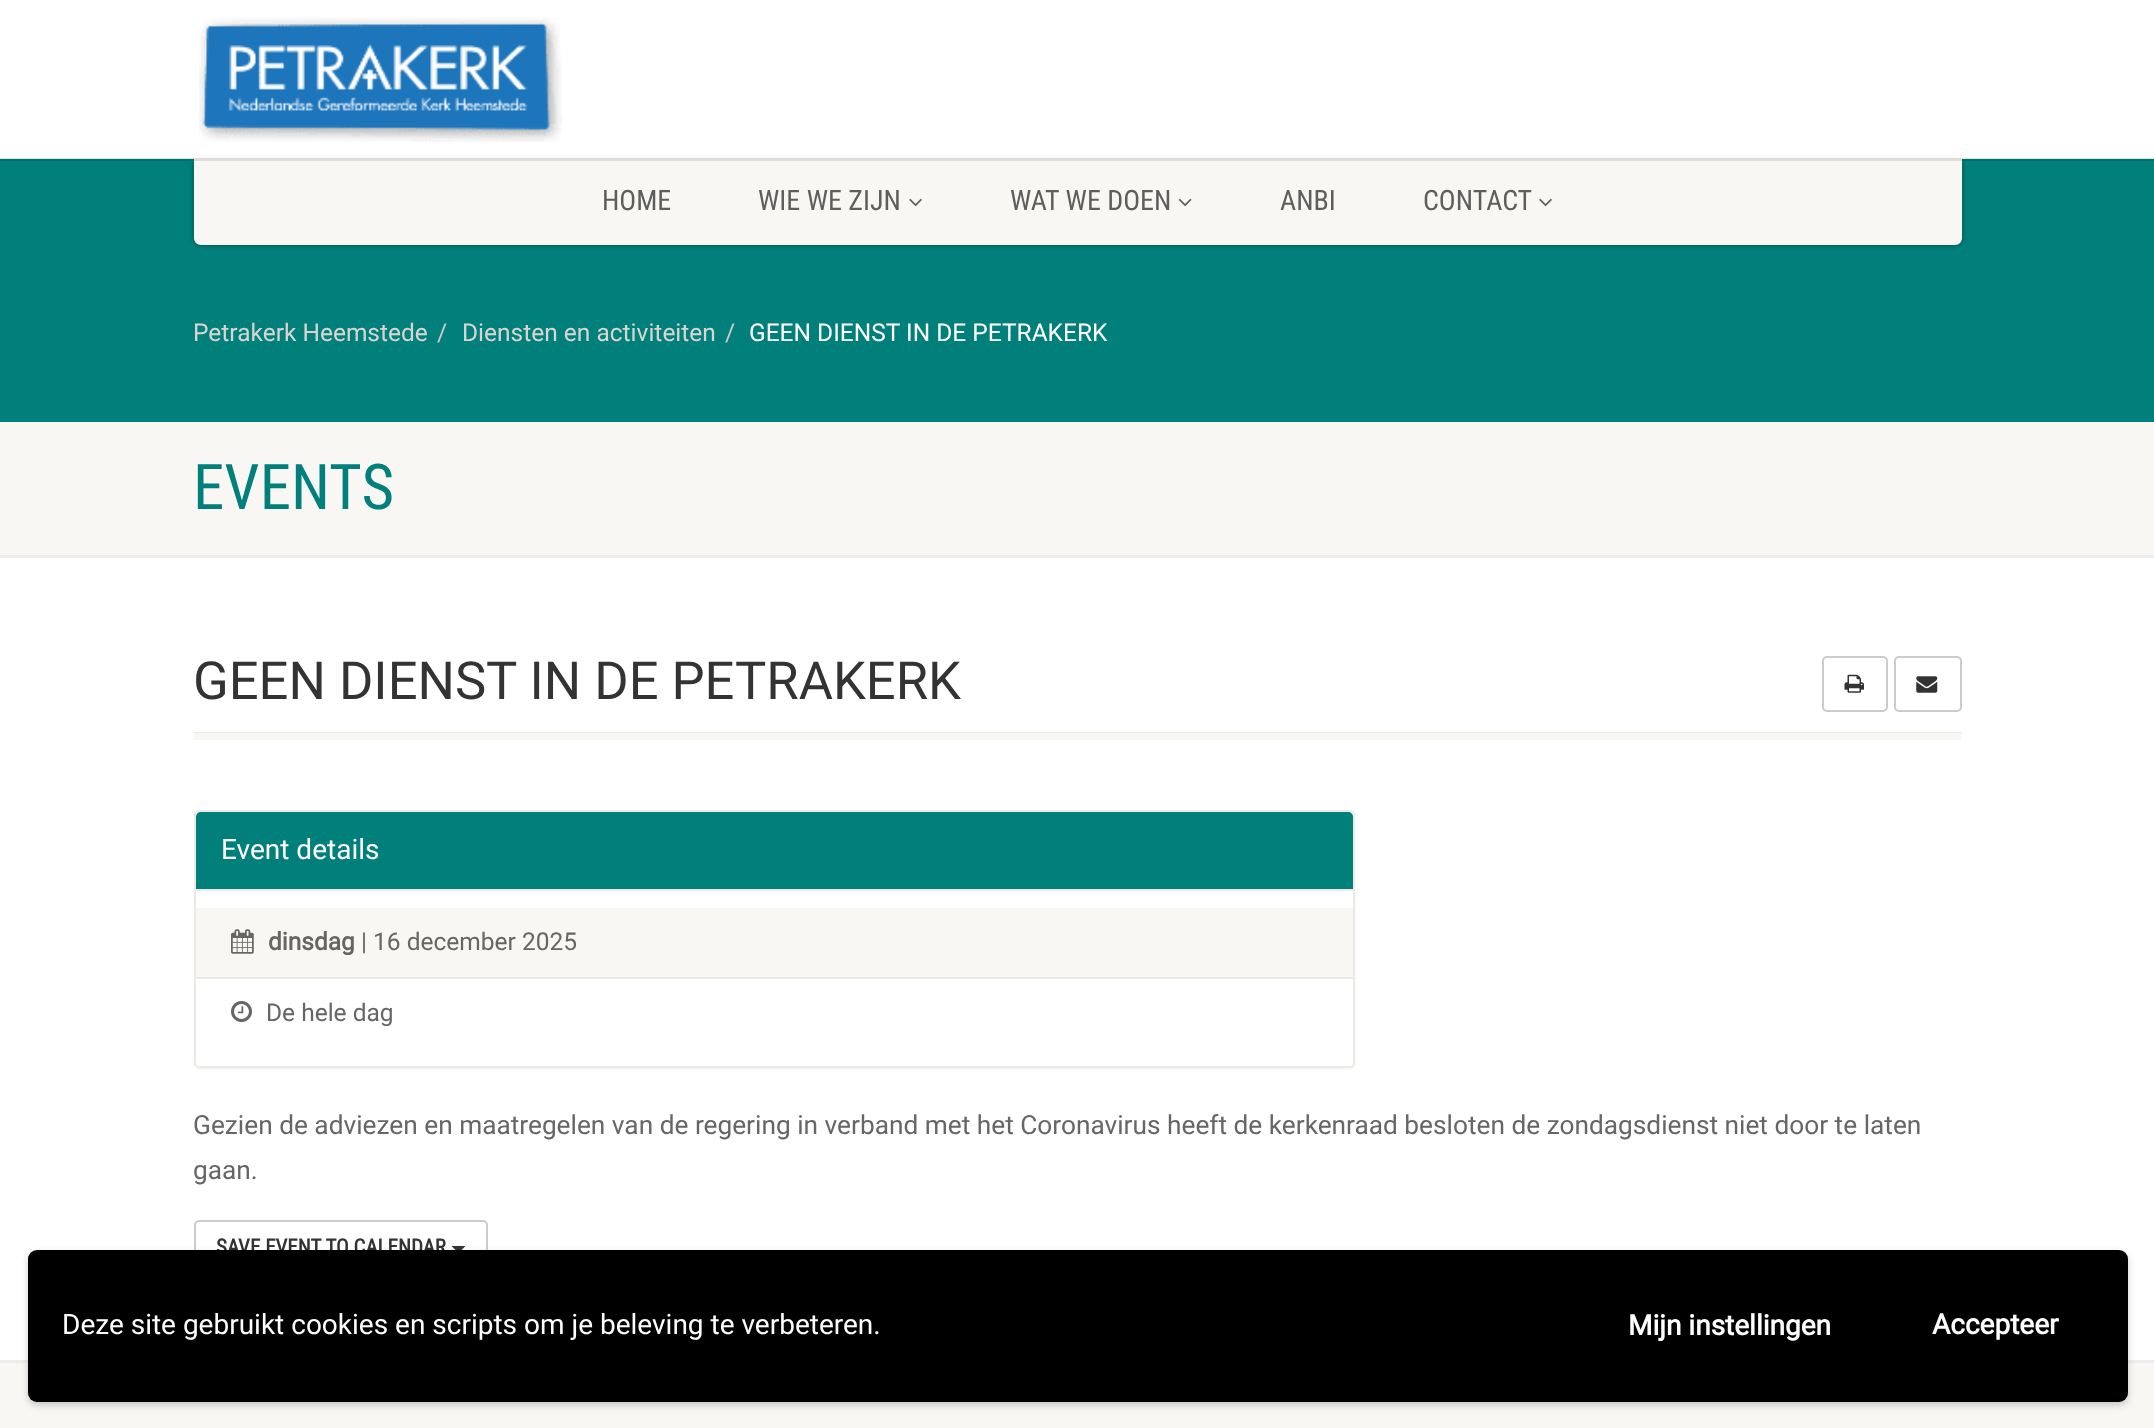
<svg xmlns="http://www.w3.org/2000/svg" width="2154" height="1428">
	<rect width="100%" height="100%" fill="#FFFFFF" />
	<rect x="0" y="159" width="2154" height="263" fill="#007F7B" />
	<rect x="194" y="158" width="1768" height="87" rx="7" fill="#000000" fill-opacity="0.4" filter="blur(2.5px)" />
	<path d="M194 158H1962V238C1962 242 1959 245 1955 245H201C197 245 194 242 194 238Z" fill="#F8F7F3" />
	<rect x="0" y="158" width="2154" height="3" fill="#000000" fill-opacity="0.1" />
	<rect x="193" y="153" width="1770" height="5" fill="#FFFFFF" fill-opacity="0.8" />
	<image x="199" y="17" width="363" height="125" href="assets/img1.png" />
	<g font-family="Roboto Condensed" font-size="28" fill="#5E5E5E">
		<text x="602" y="210">HOME</text>
		<text x="758" y="210">WIE WE ZIJN</text>
	</g>
	<image x="909" y="198" width="13" height="9" href="assets/img2.png" />
	<text x="1010" y="210" font-family="Roboto Condensed" font-size="28" fill="#5E5E5E">WAT WE DOEN</text>
	<image x="1178" y="198" width="14" height="9" href="assets/img3.png" />
	<g font-family="Roboto Condensed" font-size="28" fill="#5E5E5E">
		<text x="1280" y="210">ANBI</text>
		<text x="1423" y="210">CONTACT</text>
	</g>
	<image x="1539" y="198" width="13" height="9" href="assets/img2.png" />
	<text x="193" y="341" font-family="Roboto" font-size="24.5" fill="#D8D6D1">Petrakerk Heemstede</text>
	<text x="437" y="341" font-family="Roboto" font-size="24.5" fill="#CCCCCC">/</text>
	<text x="462" y="341" font-family="Roboto" font-size="24.5" fill="#D8D6D1">Diensten en activiteiten</text>
	<text x="725" y="341" font-family="Roboto" font-size="24.5" fill="#CCCCCC">/</text>
	<text x="749" y="341" font-family="Roboto" font-size="24.5" fill="#FFFFFF">GEEN DIENST IN DE PETRAKERK</text>
	<rect x="0" y="555" width="2154" height="3" fill="#EDEDED" />
	<rect x="0" y="422" width="2154" height="133" fill="#F8F7F3" />
	<text x="193" y="509" font-family="Roboto Condensed" font-size="63" fill="#007F7B">EVENTS</text>
	<rect x="194" y="732" width="1768" height="1" fill="#ECEAE4" />
	<text x="193" y="699" font-family="Roboto" font-size="52.5" fill="#333333">GEEN DIENST IN DE PETRAKERK</text>
	<rect x="1823" y="657" width="64" height="54" rx="4" fill="none" stroke="#CCCCCC" stroke-width="2" />
	<image x="1844" y="674" width="20" height="19" href="assets/img4.png" />
	<rect x="1895" y="657" width="66" height="54" rx="4" fill="none" stroke="#CCCCCC" stroke-width="2" />
	<image x="1916" y="676" width="22" height="17" href="assets/img5.png" />
	<rect x="194" y="733" width="1768" height="7" fill="#F8F7F3" />
	<rect x="194" y="812" width="1161" height="257" rx="5" fill="#000000" fill-opacity="0.05" filter="blur(1px)" />
	<rect x="195" y="811" width="1159" height="256" rx="4" fill="#FFFFFF" stroke="#ECEAE4" stroke-width="2" />
	<path d="M201 812H1348C1351 812 1353 814 1353 817V891H196V817C196 814 198 812 201 812Z" fill="#007F7B" />
	<rect x="196" y="889" width="1157" height="2" fill="#ECEAE4" />
	<text x="221" y="859" font-family="Roboto" font-size="28" fill="#FFFFFF">Event details</text>
	<rect x="196" y="908" width="1157" height="69" fill="#F8F7F3" />
	<rect x="196" y="977" width="1157" height="2" fill="#ECEAE4" />
	<image x="231" y="929" width="23" height="25" href="assets/img6.png" />
	<text x="268" y="950" font-family="Roboto" font-size="24.5" font-weight="700" fill="#666666">dinsdag</text>
	<text x="361" y="950" font-family="Roboto" font-size="24.5" fill="#666666">| 16 december 2025</text>
	<image x="231" y="1001" width="21" height="21" href="assets/img7.png" />
	<text x="266" y="1021" font-family="Roboto" font-size="24.5" fill="#666666">De hele dag</text>
	<g font-family="Roboto" font-size="26.25" fill="#666666">
		<text x="193" y="1134">Gezien de adviezen en maatregelen van de regering in verband met het Coronavirus heeft de kerkenraad besloten de zondagsdienst niet door te laten</text>
		<text x="193" y="1179">gaan.</text>
	</g>
	<rect x="195" y="1221" width="292" height="54" rx="4" fill="none" stroke="#CCCCCC" stroke-width="2" />
	<text x="216" y="1254" font-family="Roboto Condensed" font-size="21" font-weight="700" fill="#333333">SAVE EVENT TO CALENDAR</text>
	<path d="M451.5 1246H465.5L458.5 1253Z" fill="#333333" />
	<rect x="0" y="1360" width="2154" height="3" fill="#EDEDED" />
	<rect x="0" y="1363" width="2154" height="65" fill="#F8F7F3" />
	<rect x="28" y="1253" width="2100" height="152" rx="9" fill="#000000" fill-opacity="0.2" filter="blur(3.5px)" />
	<rect x="28" y="1250" width="2100" height="152" rx="9" fill="#000000" />
	<text x="62" y="1334" font-family="Roboto" font-size="28" fill="#FFFFFF">Deze site gebruikt cookies en scripts om je beleving te verbeteren.</text>
	<g font-family="Roboto" font-size="28" font-weight="700" fill="#FFFFFF">
		<text x="1628" y="1335">Mijn instellingen</text>
		<text x="1932" y="1334">Accepteer</text>
	</g>
</svg>
